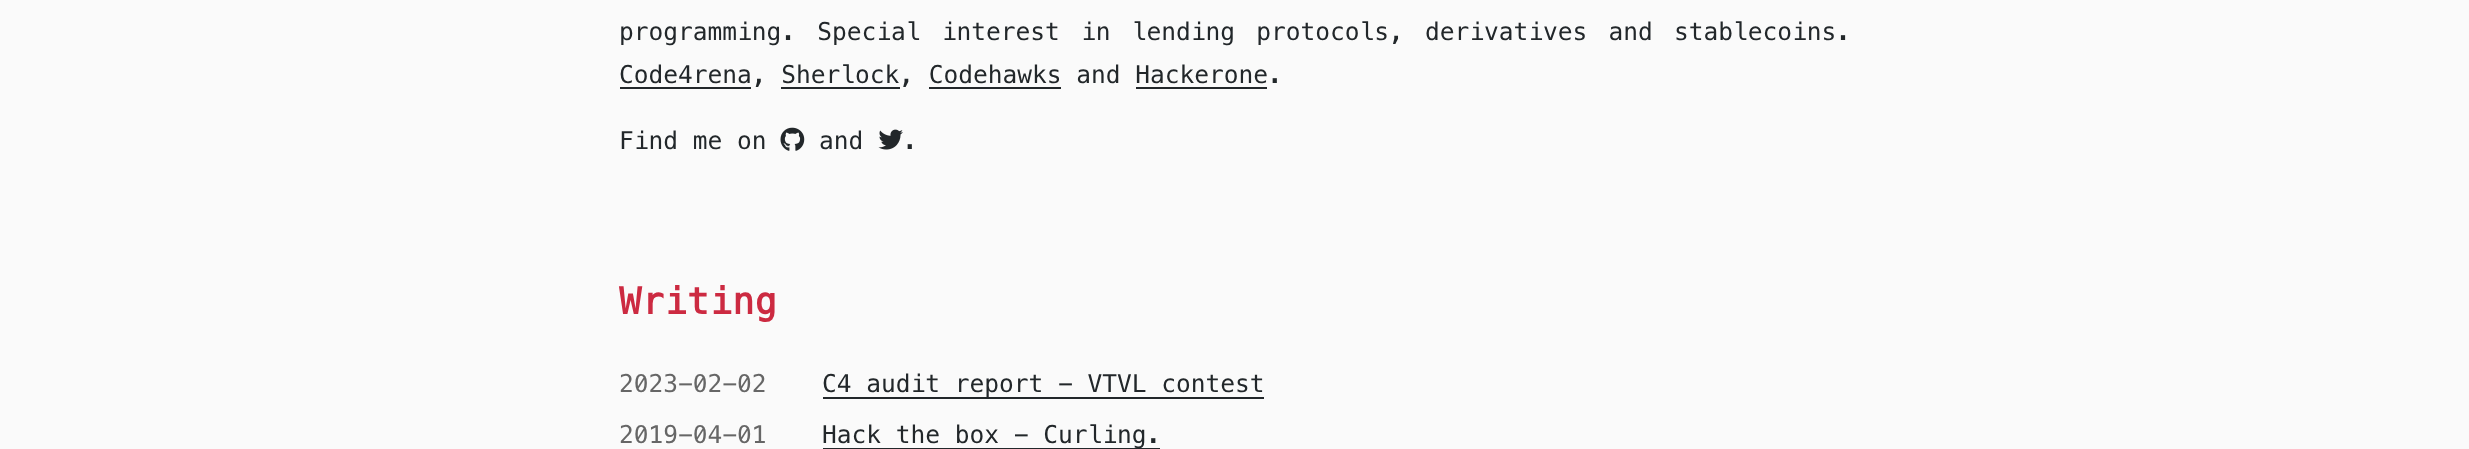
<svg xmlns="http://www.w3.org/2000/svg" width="2469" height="449">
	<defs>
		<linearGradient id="g1" gradientUnits="userSpaceOnUse" x1="685" y1="79" x2="685" y2="89"><stop offset="0" stop-color="#FAFAFA" /><stop offset="0.83" stop-color="#FAFAFA" /><stop offset="0.83" stop-color="#22272A" /><stop offset="1" stop-color="#22272A" /></linearGradient>
		<linearGradient id="g2" gradientUnits="userSpaceOnUse" x1="840" y1="79" x2="840" y2="89"><stop offset="0" stop-color="#FAFAFA" /><stop offset="0.83" stop-color="#FAFAFA" /><stop offset="0.83" stop-color="#22272A" /><stop offset="1" stop-color="#22272A" /></linearGradient>
		<linearGradient id="g3" gradientUnits="userSpaceOnUse" x1="995" y1="79" x2="995" y2="89"><stop offset="0" stop-color="#FAFAFA" /><stop offset="0.83" stop-color="#FAFAFA" /><stop offset="0.83" stop-color="#22272A" /><stop offset="1" stop-color="#22272A" /></linearGradient>
		<linearGradient id="g4" gradientUnits="userSpaceOnUse" x1="1201" y1="79" x2="1201" y2="89"><stop offset="0" stop-color="#FAFAFA" /><stop offset="0.83" stop-color="#FAFAFA" /><stop offset="0.83" stop-color="#22272A" /><stop offset="1" stop-color="#22272A" /></linearGradient>
		<linearGradient id="g5" gradientUnits="userSpaceOnUse" x1="1043" y1="388" x2="1043" y2="399"><stop offset="0" stop-color="#FAFAFA" /><stop offset="0.83" stop-color="#FAFAFA" /><stop offset="0.83" stop-color="#22272A" /><stop offset="1" stop-color="#22272A" /></linearGradient>
		<linearGradient id="g6" gradientUnits="userSpaceOnUse" x1="991" y1="439" x2="991" y2="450"><stop offset="0" stop-color="#FAFAFA" /><stop offset="0.83" stop-color="#FAFAFA" /><stop offset="0.83" stop-color="#22272A" /><stop offset="1" stop-color="#22272A" /></linearGradient>
	</defs>
	<rect width="100%" height="100%" fill="#FAFAFA" />
	<g font-family="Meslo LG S" font-size="24.5" fill="#22272A">
		<text x="619" y="40" word-spacing="6.5">programming. Special interest in lending protocols, derivatives and stablecoins.</text>
		<text x="619" y="83">Code4rena, Sherlock, Codehawks and Hackerone.</text>
	</g>
	<rect x="620" y="87" width="131" height="2" fill="url(#g1)" />
	<rect x="781" y="87" width="119" height="2" fill="url(#g2)" />
	<rect x="929" y="87" width="132" height="2" fill="url(#g3)" />
	<rect x="1136" y="87" width="131" height="2" fill="url(#g4)" />
	<text x="619" y="149" font-family="Meslo LG S" font-size="24.5" fill="#22272A">Find me on</text>
	<image x="780" y="127" width="25" height="24" href="assets/img1.png" />
	<text x="819" y="149" font-family="Meslo LG S" font-size="24.5" fill="#22272A">and</text>
	<image x="878" y="129" width="25" height="21" href="assets/img2.png" />
	<text x="903" y="149" font-family="Meslo LG S" font-size="24.5" fill="#22272A">.</text>
	<text x="619" y="314" font-family="Meslo LG S" font-size="36.75" font-weight="700" letter-spacing="0.5" fill="#CC2A41">Writing</text>
	<text x="619" y="392" font-family="Meslo LG S" font-size="24.5" fill="#666666">2023-02-02</text>
	<rect x="823" y="397" width="441" height="2" fill="url(#g5)" />
	<text x="822" y="392" font-family="Meslo LG S" font-size="24.5" fill="#22272A">C4 audit report - VTVL contest</text>
	<text x="619" y="443" font-family="Meslo LG S" font-size="24.5" fill="#666666">2019-04-01</text>
	<rect x="823" y="448" width="337" height="1" fill="url(#g6)" />
	<text x="822" y="443" font-family="Meslo LG S" font-size="24.5" fill="#22272A">Hack the box - Curling.</text>
</svg>
